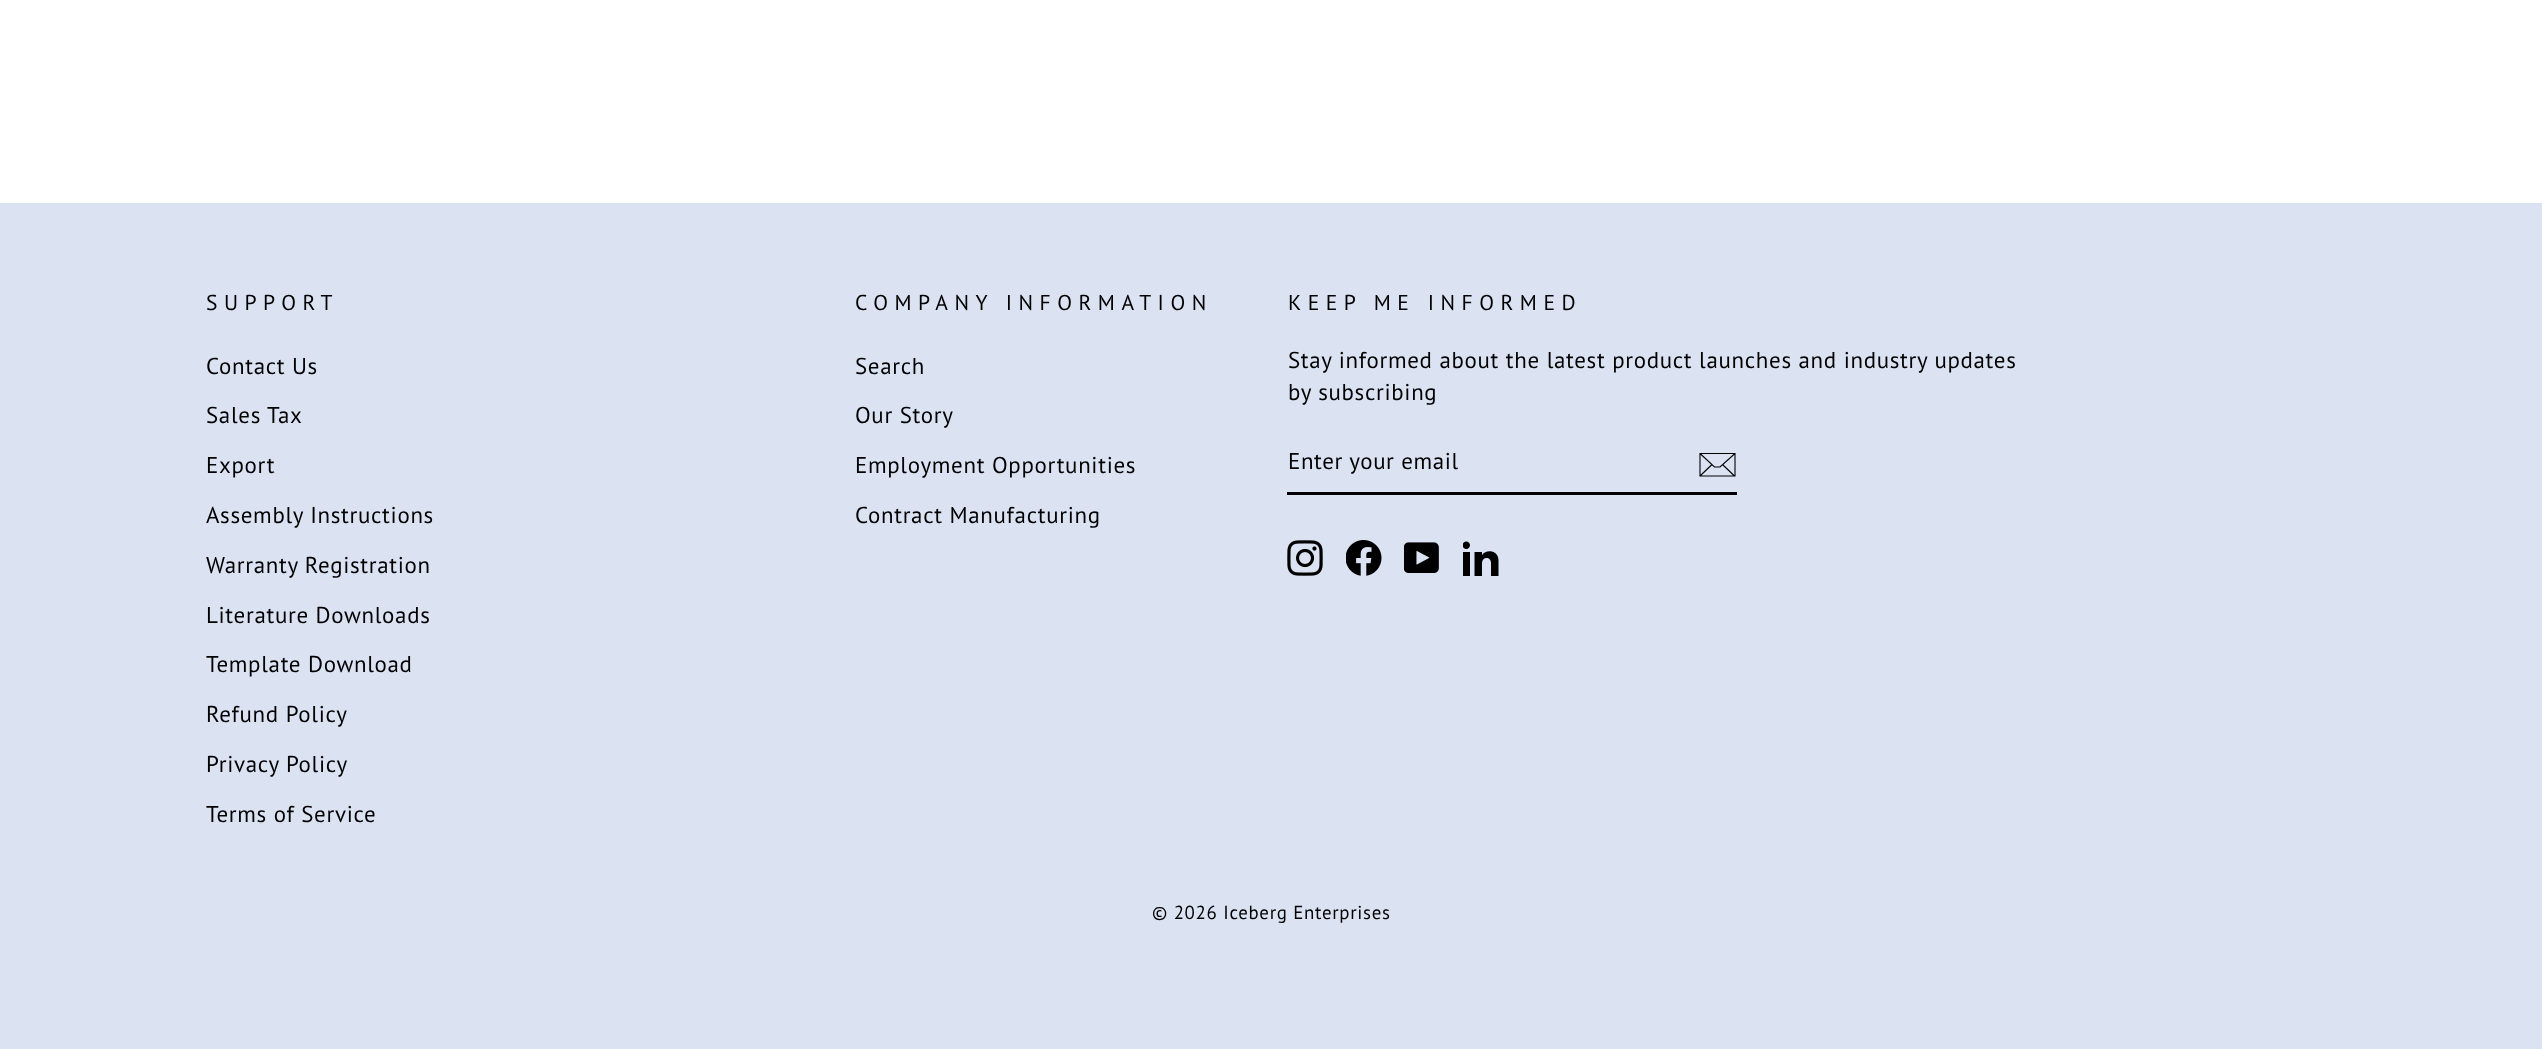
<svg xmlns="http://www.w3.org/2000/svg" width="2542" height="1049">
	<rect width="100%" height="100%" fill="#FFFFFF" />
	<rect x="0" y="203" width="2542" height="846" fill="#DBE3F3" />
	<text x="206" y="310" font-family="PT Sans" font-size="21.6" letter-spacing="6.5" fill="#000000">SUPPORT</text>
	<g font-family="PT Sans" font-size="22.95" letter-spacing="0.68" fill="#000000">
		<text x="206" y="374">Contact Us</text>
		<text x="206" y="423">Sales Tax</text>
		<text x="206" y="473">Export</text>
		<text x="206" y="523">Assembly Instructions</text>
		<text x="206" y="573">Warranty Registration</text>
		<text x="206" y="623">Literature Downloads</text>
		<text x="206" y="672">Template Download</text>
		<text x="206" y="722">Refund Policy</text>
		<text x="206" y="772">Privacy Policy</text>
		<text x="206" y="822">Terms of Service</text>
	</g>
	<text x="855" y="310" font-family="PT Sans" font-size="21.6" letter-spacing="6.5" fill="#000000">COMPANY INFORMATION</text>
	<g font-family="PT Sans" font-size="22.95" letter-spacing="0.68" fill="#000000">
		<text x="855" y="374">Search</text>
		<text x="855" y="423">Our Story</text>
		<text x="855" y="473">Employment Opportunities</text>
		<text x="855" y="523">Contract Manufacturing</text>
	</g>
	<text x="1288" y="310" font-family="PT Sans" font-size="21.6" letter-spacing="6.5" fill="#000000">KEEP ME INFORMED</text>
	<g font-family="PT Sans" font-size="22.95" letter-spacing="0.68" fill="#000000">
		<text x="1288" y="368">Stay informed about the latest product launches and industry updates</text>
		<text x="1288" y="400">by subscribing</text>
	</g>
	<rect x="1287" y="492" width="450" height="3" fill="#000000" />
	<text x="1288" y="469" font-family="PT Sans" font-size="22.95" letter-spacing="0.6" fill="#000000">Enter your email</text>
	<path d="M1735 476H1700V453.5H1735ZM1700 453.5L1714.5 467H1720L1735 453.5M1712 464.5L1700.5 475.5M1734.5 476L1722.5 464.5" fill="none" stroke="#000000" stroke-width="1.1" />
	<image x="1287" y="540" width="36" height="36" href="assets/img1.png" />
	<image x="1346" y="540" width="36" height="36" href="assets/img2.png" />
	<image x="1404" y="542" width="35" height="31" href="assets/img3.png" />
	<image x="1463" y="541" width="36" height="35" href="assets/img4.png" />
	<text x="1152" y="919" font-family="PT Sans" font-size="18.9" letter-spacing="0.68" fill="#000000">© 2026 Iceberg Enterprises</text>
</svg>
